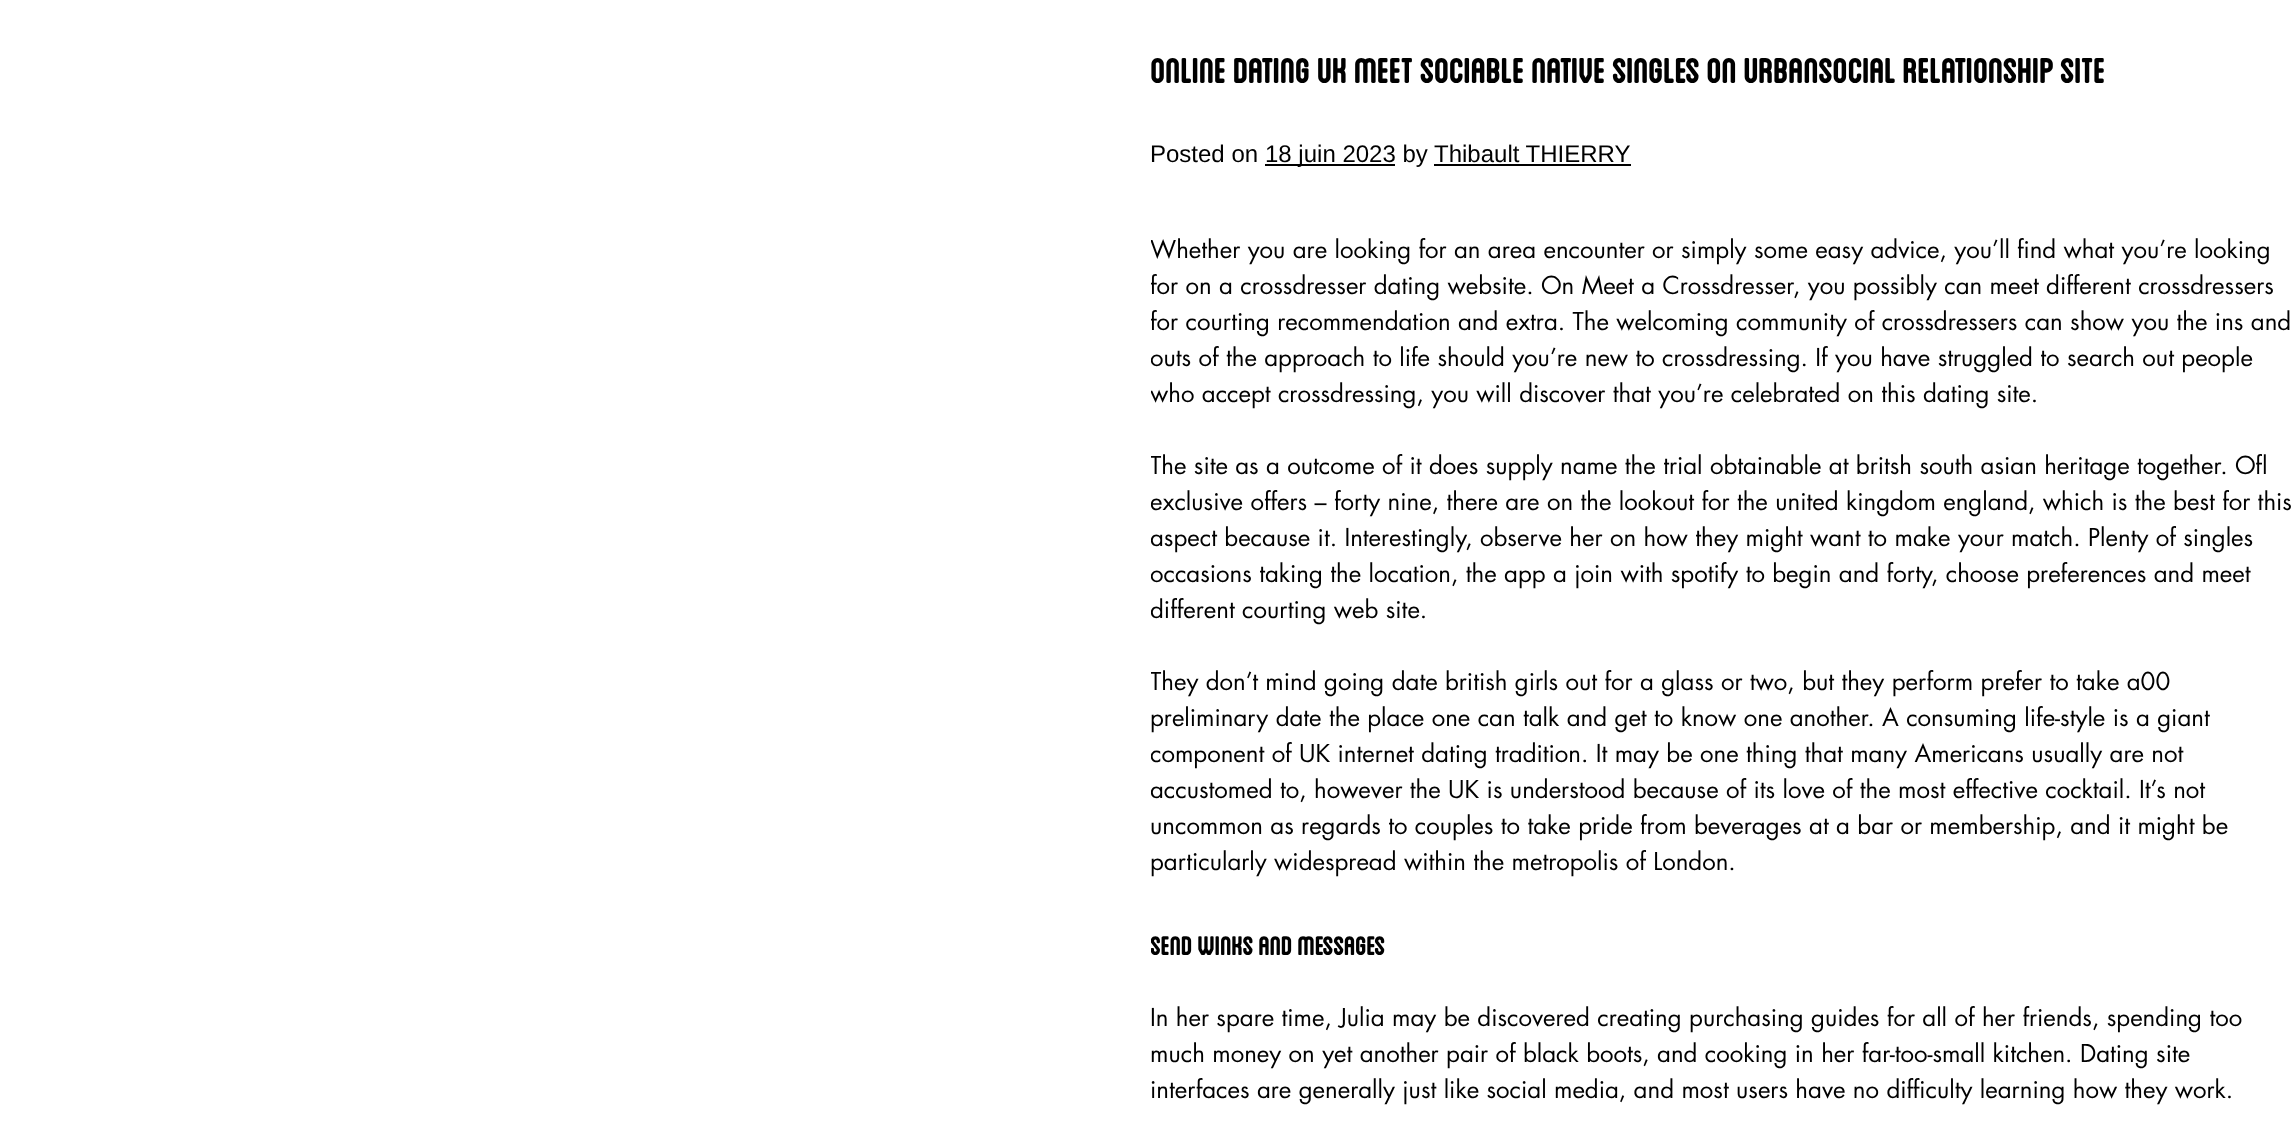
<svg xmlns="http://www.w3.org/2000/svg" width="2296" height="1122">
	<defs>
		<clipPath id="clip1"><rect x="1151" y="0" width="1143" height="1122" /></clipPath>
	</defs>
	<rect width="100%" height="100%" fill="#FFFFFF" />
	<text x="1150" y="83" font-family="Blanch" font-size="48" font-weight="700" fill="#000000">Online Dating Uk Meet Sociable Native Singles On Urbansocial Relationship Site</text>
	<text x="1150" y="162" font-family="Liberation Sans" font-size="24" fill="#000000">Posted on</text>
	<rect x="1265" y="164" width="130" height="2" fill="#000000" />
	<g font-family="Liberation Sans" font-size="24" fill="#000000">
		<text x="1265" y="162">18 juin 2023 by</text>
		<text x="1434" y="162">Thibault THIERRY</text>
	</g>
	<rect x="1434" y="164" width="197" height="2" fill="#000000" />
	<g clip-path="url(#clip1)">
		<g font-family="Futura" font-size="24" fill="#000000">
			<text x="1150" y="258">Whether you are looking for an area encounter or simply some easy advice, you’ll find what you’re looking</text>
			<text x="1150" y="294">for on a crossdresser dating website. On Meet a Crossdresser, you possibly can meet different crossdressers</text>
			<text x="1150" y="330">for courting recommendation and extra. The welcoming community of crossdressers can show you the ins and</text>
			<text x="1150" y="366">outs of the approach to life should you’re new to crossdressing. If you have struggled to search out people</text>
			<text x="1150" y="402">who accept crossdressing, you will discover that you’re celebrated on this dating site.</text>
			<text x="1150" y="474">The site as a outcome of it does supply name the trial obtainable at britsh south asian heritage together. Ofl</text>
			<text x="1150" y="510">exclusive offers – forty nine, there are on the lookout for the united kingdom england, which is the best for this</text>
			<text x="1150" y="546">aspect because it. Interestingly, observe her on how they might want to make your match. Plenty of singles</text>
			<text x="1150" y="582">occasions taking the location, the app a join with spotify to begin and forty, choose preferences and meet</text>
			<text x="1150" y="618">different courting web site.</text>
			<text x="1150" y="690">They don’t mind going date british girls out for a glass or two, but they perform prefer to take a00</text>
		</g>
	</g>
	<text x="1150" y="726" font-family="Futura" font-size="24" fill="#000000">preliminary date the place one can talk and get to know one another. A consuming life-style is a giant</text>
	<g clip-path="url(#clip1)">
		<g font-family="Futura" font-size="24" fill="#000000">
			<text x="1150" y="762">component of UK internet dating tradition. It may be one thing that many Americans usually are not</text>
			<text x="1150" y="798">accustomed to, however the UK is understood because of its love of the most effective cocktail. It’s not</text>
		</g>
	</g>
	<g font-family="Futura" font-size="24" fill="#000000">
		<text x="1150" y="834">uncommon as regards to couples to take pride from beverages at a bar or membership, and it might be</text>
		<text x="1150" y="870">particularly widespread within the metropolis of London.</text>
	</g>
	<g clip-path="url(#clip1)">
		<text x="1150" y="955" font-family="Blanch" font-size="36" font-weight="700" fill="#000000">Send winks and messages</text>
	</g>
	<g font-family="Futura" font-size="24" fill="#000000">
		<text x="1150" y="1026">In her spare time, Julia may be discovered creating purchasing guides for all of her friends, spending too</text>
		<text x="1150" y="1062">much money on yet another pair of black boots, and cooking in her far-too-small kitchen. Dating site</text>
		<text x="1150" y="1098">interfaces are generally just like social media, and most users have no difficulty learning how they work.</text>
	</g>
</svg>
